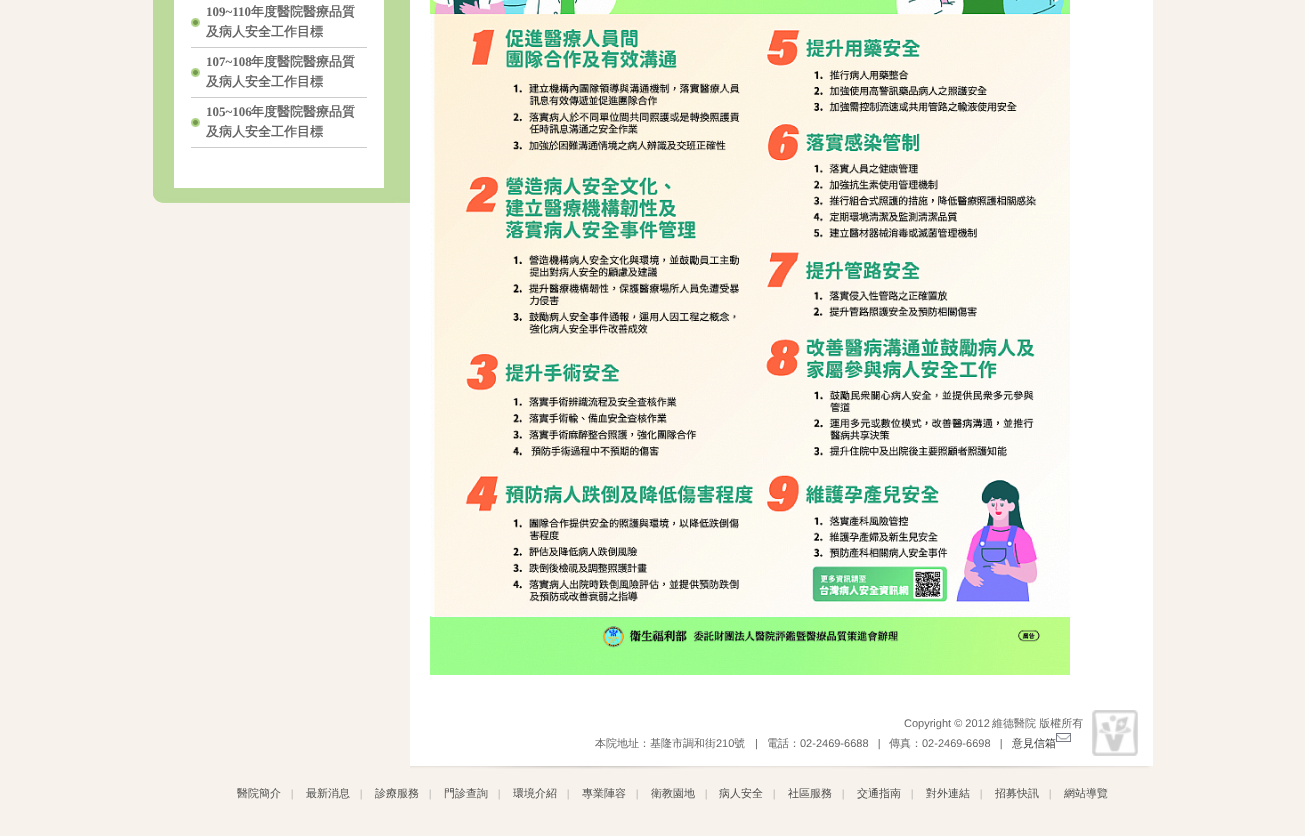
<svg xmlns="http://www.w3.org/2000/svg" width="1305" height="836">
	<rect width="100%" height="100%" fill="#F7F2EC" />
	<rect x="153" y="0" width="257" height="188" fill="#BBDA9B" />
	<rect x="174" y="0" width="210" height="188" fill="#FFFFFF" />
	<image x="191" y="18" width="9" height="9" href="assets/img1.png" />
	<text x="206" y="16" font-family="Liberation Serif" font-size="13" font-weight="700" fill="#666666">109~110</text>
	<g font-family="WenQuanYi Zen Hei" font-size="13" font-weight="700" fill="#666666">
		<text x="251" y="16">年度醫院醫療品質</text>
		<text x="206" y="36">及病人安全工作目標</text>
	</g>
	<rect x="191" y="47" width="176" height="1" fill="#CCCCCC" />
	<image x="191" y="68" width="9" height="9" href="assets/img1.png" />
	<text x="206" y="66" font-family="Liberation Serif" font-size="13" font-weight="700" fill="#666666">107~108</text>
	<g font-family="WenQuanYi Zen Hei" font-size="13" font-weight="700" fill="#666666">
		<text x="251" y="66">年度醫院醫療品質</text>
		<text x="206" y="86">及病人安全工作目標</text>
	</g>
	<rect x="191" y="97" width="176" height="1" fill="#CCCCCC" />
	<image x="191" y="118" width="9" height="9" href="assets/img1.png" />
	<text x="206" y="116" font-family="Liberation Serif" font-size="13" font-weight="700" fill="#666666">105~106</text>
	<g font-family="WenQuanYi Zen Hei" font-size="13" font-weight="700" fill="#666666">
		<text x="251" y="116">年度醫院醫療品質</text>
		<text x="206" y="136">及病人安全工作目標</text>
	</g>
	<rect x="191" y="147" width="176" height="1" fill="#CCCCCC" />
	<image x="153" y="188" width="257" height="15" href="assets/img2.png" />
	<rect x="410" y="0" width="743" height="756" fill="#FFFFFF" />
	<image x="430" y="0" width="640" height="675" href="assets/img3.png" />
	<text x="904" y="727" font-family="Liberation Sans" font-size="11" fill="#666666">Copyright © 2012</text>
	<g font-family="WenQuanYi Zen Hei" font-size="11" font-weight="500" fill="#666666">
		<text x="992" y="727">維德醫院 版權所有</text>
		<text x="595" y="747">本院地址：基隆市調和街</text>
	</g>
	<text x="716" y="747" font-family="Liberation Sans" font-size="11" fill="#666666">210</text>
	<text x="734" y="747" font-family="WenQuanYi Zen Hei" font-size="11" font-weight="500" fill="#666666">號</text>
	<text x="755" y="747" font-family="Liberation Sans" font-size="11" fill="#666666">|</text>
	<text x="767" y="747" font-family="WenQuanYi Zen Hei" font-size="11" font-weight="500" fill="#666666">電話：</text>
	<text x="800" y="747" font-family="Liberation Sans" font-size="11" fill="#666666" xml:space="preserve">02-2469-6688   |</text>
	<text x="889" y="747" font-family="WenQuanYi Zen Hei" font-size="11" font-weight="500" fill="#666666">傳真：</text>
	<text x="922" y="747" font-family="Liberation Sans" font-size="11" fill="#666666" xml:space="preserve">02-2469-6698   |</text>
	<text x="1012" y="747" font-family="WenQuanYi Zen Hei" font-size="11" font-weight="500" fill="#333333">意見信箱</text>
	<image x="1056" y="733" width="15" height="9" href="assets/img4.png" />
	<image x="1092" y="710" width="46" height="46" href="assets/img5.png" />
	<image x="410" y="756" width="743" height="13" href="assets/img6.png" />
	<text x="237" y="797" font-family="WenQuanYi Zen Hei" font-size="11" font-weight="500" fill="#4D4D4C">醫院簡介</text>
	<text x="291" y="797" font-family="Liberation Serif" font-size="11" fill="#999999">|</text>
	<text x="306" y="797" font-family="WenQuanYi Zen Hei" font-size="11" font-weight="500" fill="#4D4D4C">最新消息</text>
	<text x="360" y="797" font-family="Liberation Serif" font-size="11" fill="#999999">|</text>
	<text x="375" y="797" font-family="WenQuanYi Zen Hei" font-size="11" font-weight="500" fill="#4D4D4C">診療服務</text>
	<text x="429" y="797" font-family="Liberation Serif" font-size="11" fill="#999999">|</text>
	<text x="444" y="797" font-family="WenQuanYi Zen Hei" font-size="11" font-weight="500" fill="#4D4D4C">門診查詢</text>
	<text x="498" y="797" font-family="Liberation Serif" font-size="11" fill="#999999">|</text>
	<text x="513" y="797" font-family="WenQuanYi Zen Hei" font-size="11" font-weight="500" fill="#4D4D4C">環境介紹</text>
	<text x="567" y="797" font-family="Liberation Serif" font-size="11" fill="#999999">|</text>
	<text x="582" y="797" font-family="WenQuanYi Zen Hei" font-size="11" font-weight="500" fill="#4D4D4C">專業陣容</text>
	<text x="636" y="797" font-family="Liberation Serif" font-size="11" fill="#999999">|</text>
	<text x="651" y="797" font-family="WenQuanYi Zen Hei" font-size="11" font-weight="500" fill="#4D4D4C">衛教園地</text>
	<text x="705" y="797" font-family="Liberation Serif" font-size="11" fill="#999999">|</text>
	<text x="719" y="797" font-family="WenQuanYi Zen Hei" font-size="11" font-weight="500" fill="#4D4D4C">病人安全</text>
	<text x="773" y="797" font-family="Liberation Serif" font-size="11" fill="#999999">|</text>
	<text x="788" y="797" font-family="WenQuanYi Zen Hei" font-size="11" font-weight="500" fill="#4D4D4C">社區服務</text>
	<text x="842" y="797" font-family="Liberation Serif" font-size="11" fill="#999999">|</text>
	<text x="857" y="797" font-family="WenQuanYi Zen Hei" font-size="11" font-weight="500" fill="#4D4D4C">交通指南</text>
	<text x="911" y="797" font-family="Liberation Serif" font-size="11" fill="#999999">|</text>
	<text x="926" y="797" font-family="WenQuanYi Zen Hei" font-size="11" font-weight="500" fill="#4D4D4C">對外連結</text>
	<text x="980" y="797" font-family="Liberation Serif" font-size="11" fill="#999999">|</text>
	<text x="995" y="797" font-family="WenQuanYi Zen Hei" font-size="11" font-weight="500" fill="#4D4D4C">招募快訊</text>
	<text x="1049" y="797" font-family="Liberation Serif" font-size="11" fill="#999999">|</text>
	<text x="1064" y="797" font-family="WenQuanYi Zen Hei" font-size="11" font-weight="500" fill="#4D4D4C">網站導覽</text>
</svg>
